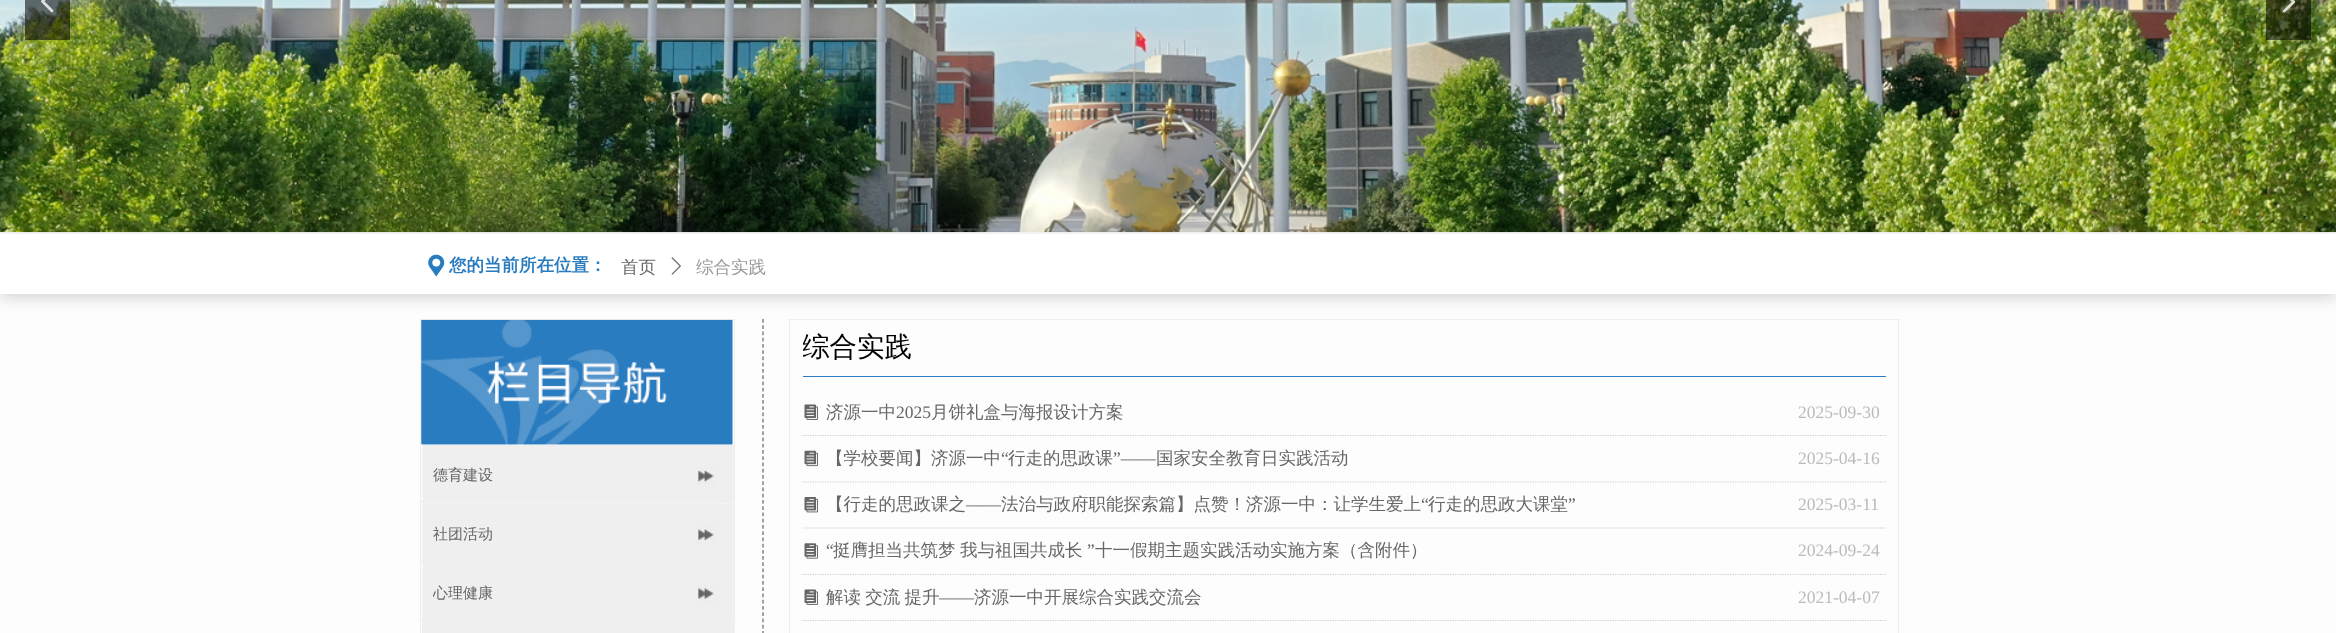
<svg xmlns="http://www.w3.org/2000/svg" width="2336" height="633">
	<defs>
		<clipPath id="clip1"><rect x="803" y="331" width="121" height="32" /></clipPath>
	</defs>
	<rect width="100%" height="100%" fill="#FDFDFD" />
	<image x="0" y="0" width="2336" height="233" href="assets/img1.png" />
	<rect x="25" y="0" width="45" height="40" fill="#000000" fill-opacity="0.55" />
	<image x="41" y="0" width="13" height="13" href="assets/img2.png" />
	<rect x="2266" y="0" width="45" height="40" fill="#000000" fill-opacity="0.55" />
	<image x="2282" y="0" width="14" height="13" href="assets/img3.png" />
	<rect x="0" y="238" width="2336" height="60" fill="#000000" fill-opacity="0.16" filter="blur(7.5px)" />
	<rect x="0" y="234" width="2336" height="60" fill="#FFFFFF" />
	<image x="428" y="254" width="17" height="23" href="assets/img4.png" />
	<text x="449" y="271" font-family="WenQuanYi Zen Hei" font-size="17.5" font-weight="700" fill="#2A7CC0">您的当前所在位置：</text>
	<text x="621" y="273" font-family="WenQuanYi Zen Hei" font-size="17.5" font-weight="500" fill="#666666">首页</text>
	<image x="671" y="257" width="10" height="18" href="assets/img5.png" />
	<text x="696" y="273" font-family="WenQuanYi Zen Hei" font-size="17.5" font-weight="500" fill="#999999">综合实践</text>
	<rect x="420.5" y="319.5" width="314" height="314" fill="none" stroke="#EEEEEE" />
	<image x="421" y="319" width="312" height="126" href="assets/img6.png" />
	<image x="421" y="444" width="313" height="60" href="assets/img7.png" />
	<text x="433" y="480" font-family="WenQuanYi Zen Hei" font-size="15" font-weight="500" fill="#666666">德育建设</text>
	<image x="421" y="503" width="313" height="60" href="assets/img8.png" />
	<text x="433" y="539" font-family="WenQuanYi Zen Hei" font-size="15" font-weight="500" fill="#666666">社团活动</text>
	<image x="421" y="562" width="313" height="59" href="assets/img9.png" />
	<text x="433" y="598" font-family="WenQuanYi Zen Hei" font-size="15" font-weight="500" fill="#666666">心理健康</text>
	<rect x="422" y="621" width="312" height="12" fill="#EFEFEF" />
	<path d="M763 319V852.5" fill="none" stroke="#666666" stroke-width="1.2" stroke-dasharray="3.75 2.49" />
	<rect x="789.5" y="319.5" width="1109" height="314" fill="none" stroke="#EEEEEE" />
	<g clip-path="url(#clip1)">
		<text x="802" y="356" font-family="WenQuanYi Zen Hei" font-size="27.5" font-weight="500" fill="#000000">综合实践</text>
	</g>
	<rect x="803" y="376" width="1083" height="1" fill="#2A7CC0" />
	<path d="M802.5 435.5H1886" fill="none" stroke="#CCCCCC" stroke-width="1.2" stroke-dasharray="1.25 1.25" />
	<image x="804" y="404" width="14" height="16" href="assets/img10.png" />
	<text x="826" y="418" font-family="WenQuanYi Zen Hei" font-size="17.5" font-weight="500" fill="#666666">济源一中</text>
	<text x="896" y="418" font-family="Liberation Serif" font-size="17.5" fill="#666666">2025</text>
	<text x="931" y="418" font-family="WenQuanYi Zen Hei" font-size="17.5" font-weight="500" fill="#666666">月饼礼盒与海报设计方案</text>
	<text x="1798" y="418" font-family="Liberation Serif" font-size="17.5" fill="#BBBBBB">2025-09-30</text>
	<path d="M802.5 482H1886" fill="none" stroke="#CCCCCC" stroke-width="1.2" stroke-dasharray="1.25 1.25" />
	<image x="804" y="450" width="14" height="17" href="assets/img11.png" />
	<text x="826" y="464" font-family="WenQuanYi Zen Hei" font-size="17.5" font-weight="500" fill="#666666">【学校要闻】济源一中</text>
	<text x="1001" y="464" font-family="Liberation Serif" font-size="17.5" fill="#666666">“</text>
	<text x="1008" y="464" font-family="WenQuanYi Zen Hei" font-size="17.5" font-weight="500" fill="#666666">行走的思政课</text>
	<text x="1113" y="464" font-family="Liberation Serif" font-size="17.5" fill="#666666">”——</text>
	<text x="1156" y="464" font-family="WenQuanYi Zen Hei" font-size="17.5" font-weight="500" fill="#666666">国家安全教育日实践活动</text>
	<text x="1798" y="464" font-family="Liberation Serif" font-size="17.5" fill="#BBBBBB">2025-04-16</text>
	<path d="M802.5 528H1886" fill="none" stroke="#CCCCCC" stroke-width="1.2" stroke-dasharray="1.25 1.25" />
	<image x="804" y="497" width="14" height="16" href="assets/img12.png" />
	<text x="826" y="510" font-family="WenQuanYi Zen Hei" font-size="17.5" font-weight="500" fill="#666666">【行走的思政课之</text>
	<text x="966" y="510" font-family="Liberation Serif" font-size="17.5" fill="#666666">——</text>
	<text x="1001" y="510" font-family="WenQuanYi Zen Hei" font-size="17.5" font-weight="500" fill="#666666">法治与政府职能探索篇】点赞！济源一中：让学生爱上</text>
	<text x="1421" y="510" font-family="Liberation Serif" font-size="17.5" fill="#666666">“</text>
	<text x="1428" y="510" font-family="WenQuanYi Zen Hei" font-size="17.5" font-weight="500" fill="#666666">行走的思政大课堂</text>
	<text x="1568" y="510" font-family="Liberation Serif" font-size="17.5" fill="#666666">”</text>
	<text x="1798" y="510" font-family="Liberation Serif" font-size="17.5" fill="#BBBBBB">2025-03-11</text>
	<path d="M802.5 574.5H1886" fill="none" stroke="#CCCCCC" stroke-width="1.2" stroke-dasharray="1.25 1.25" />
	<image x="804" y="543" width="14" height="16" href="assets/img13.png" />
	<text x="826" y="556" font-family="Liberation Serif" font-size="17.5" fill="#666666">“</text>
	<g font-family="WenQuanYi Zen Hei" font-size="17.5" font-weight="500" fill="#666666">
		<text x="833" y="556">挺膺担当共筑梦</text>
		<text x="960" y="556">我与祖国共成长</text>
	</g>
	<text x="1087" y="556" font-family="Liberation Serif" font-size="17.5" fill="#666666">”</text>
	<text x="1095" y="556" font-family="WenQuanYi Zen Hei" font-size="17.5" font-weight="500" fill="#666666">十一假期主题实践活动实施方案（含附件）</text>
	<text x="1798" y="556" font-family="Liberation Serif" font-size="17.5" fill="#BBBBBB">2024-09-24</text>
	<path d="M802.5 620.5H1886" fill="none" stroke="#CCCCCC" stroke-width="1.2" stroke-dasharray="1.25 1.25" />
	<image x="804" y="589" width="14" height="16" href="assets/img10.png" />
	<text x="826" y="603" word-spacing="-1" font-family="WenQuanYi Zen Hei" font-size="17.5" font-weight="500" fill="#666666">解读 交流 提升</text>
	<text x="939" y="603" font-family="Liberation Serif" font-size="17.5" fill="#666666">——</text>
	<text x="974" y="603" font-family="WenQuanYi Zen Hei" font-size="17.5" font-weight="500" fill="#666666">济源一中开展综合实践交流会</text>
	<text x="1798" y="603" font-family="Liberation Serif" font-size="17.5" fill="#BBBBBB">2021-04-07</text>
</svg>
